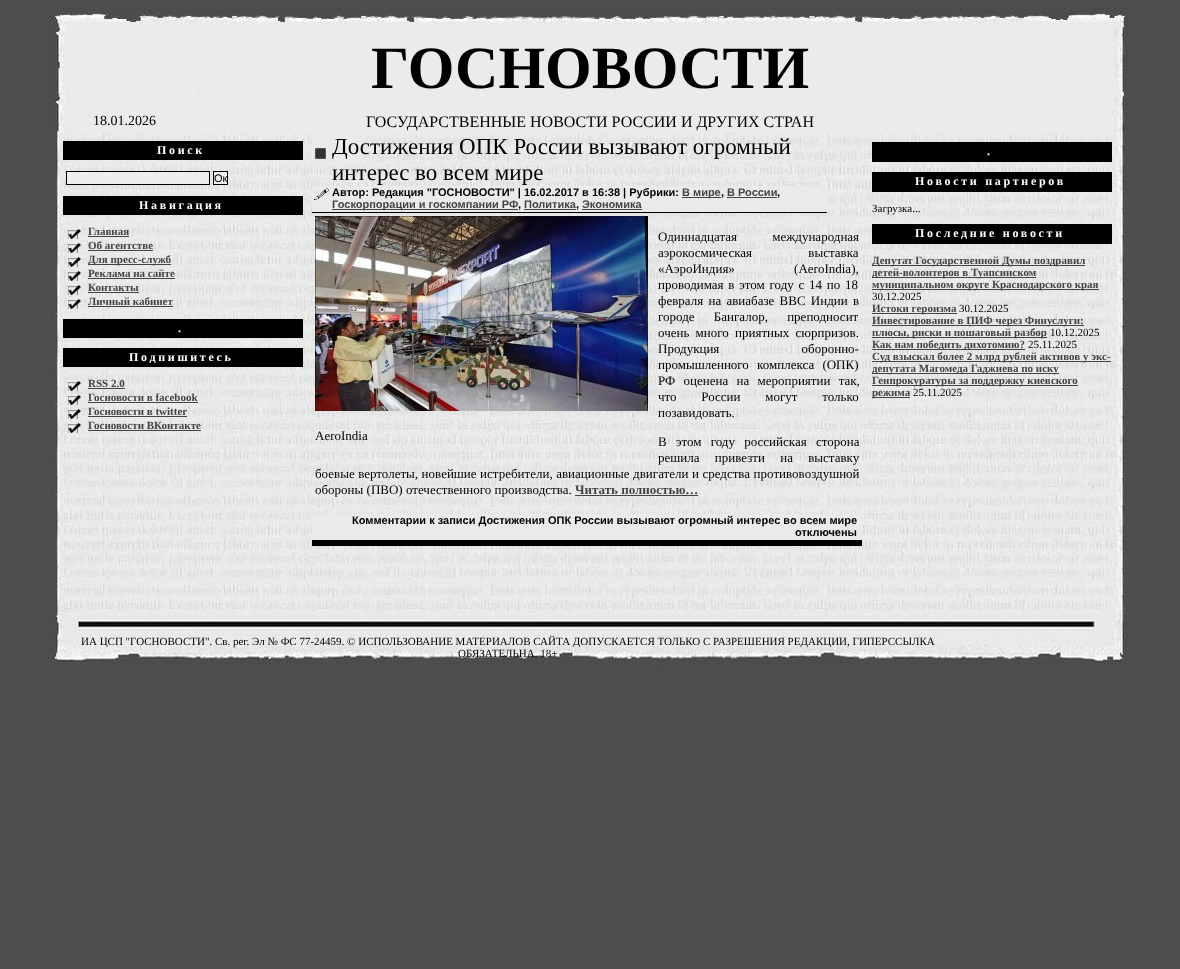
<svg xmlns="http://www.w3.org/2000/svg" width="1180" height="969">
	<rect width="100%" height="100%" fill="#4E4E4E" />
	<image x="48" y="8" width="1080" height="123" href="assets/img1.png" />
	<text x="371" y="88" font-family="Liberation Serif" font-size="60" font-weight="700" fill="#000000">ГОСНОВОСТИ</text>
	<text x="93" y="125" font-family="Liberation Serif" font-size="14" fill="#000000">18.01.2026</text>
	<text x="366" y="127" font-family="Liberation Serif" font-size="16" fill="#000000">ГОСУДАРСТВЕННЫЕ НОВОСТИ РОССИИ И ДРУГИХ СТРАН</text>
	<image x="48" y="131" width="1080" height="484" href="assets/img2.png" />
	<rect x="63" y="141" width="240" height="19" fill="#000000" />
	<text x="157" y="154" font-family="Liberation Serif" font-size="12" font-weight="700" letter-spacing="2.7" fill="#FFFFFF">Поиск</text>
	<rect x="66.5" y="171.5" width="143" height="13" fill="#EEEEEE" stroke="#000000" />
	<rect x="213.5" y="171.5" width="14" height="13" fill="#EEEEEE" stroke="#000000" />
	<text x="214" y="182" font-family="Liberation Sans" font-size="11" fill="#000000">Ок</text>
	<rect x="63" y="196" width="240" height="19" fill="#000000" />
	<text x="139" y="209" font-family="Liberation Serif" font-size="12" font-weight="700" letter-spacing="2.7" fill="#FFFFFF">Навигация</text>
	<image x="68" y="228" width="13" height="11" href="assets/img3.png" />
	<text x="88" y="235" font-family="Liberation Serif" font-size="11" font-weight="700" fill="#444444">Главная</text>
	<rect x="88" y="236" width="41" height="1" fill="#444444" />
	<image x="68" y="242" width="13" height="11" href="assets/img3.png" />
	<text x="88" y="249" font-family="Liberation Serif" font-size="11" font-weight="700" fill="#444444">Об агентстве</text>
	<rect x="88" y="250" width="65" height="1" fill="#444444" />
	<image x="68" y="256" width="13" height="11" href="assets/img3.png" />
	<rect x="88" y="264" width="83" height="1" fill="#444444" />
	<text x="88" y="263" font-family="Liberation Serif" font-size="11" font-weight="700" fill="#444444">Для пресс-служб</text>
	<image x="68" y="270" width="13" height="11" href="assets/img3.png" />
	<text x="88" y="277" font-family="Liberation Serif" font-size="11" font-weight="700" fill="#444444">Реклама на сайте</text>
	<rect x="88" y="278" width="87" height="1" fill="#444444" />
	<image x="68" y="284" width="13" height="11" href="assets/img3.png" />
	<text x="88" y="291" font-family="Liberation Serif" font-size="11" font-weight="700" fill="#444444">Контакты</text>
	<rect x="88" y="292" width="51" height="1" fill="#444444" />
	<image x="68" y="298" width="13" height="11" href="assets/img3.png" />
	<text x="88" y="305" font-family="Liberation Serif" font-size="11" font-weight="700" fill="#444444">Личный кабинет</text>
	<rect x="88" y="306" width="85" height="1" fill="#444444" />
	<rect x="63" y="319" width="240" height="19" fill="#000000" />
	<text x="178" y="332" font-family="Liberation Serif" font-size="12" font-weight="700" letter-spacing="2.7" fill="#FFFFFF">.</text>
	<rect x="63" y="348" width="240" height="19" fill="#000000" />
	<text x="129" y="361" font-family="Liberation Serif" font-size="12" font-weight="700" letter-spacing="2.7" fill="#FFFFFF">Подпишитесь</text>
	<image x="68" y="380" width="13" height="11" href="assets/img3.png" />
	<text x="88" y="387" font-family="Liberation Serif" font-size="11" font-weight="700" fill="#444444">RSS 2.0</text>
	<rect x="88" y="388" width="37" height="1" fill="#444444" />
	<image x="68" y="394" width="13" height="11" href="assets/img3.png" />
	<text x="88" y="401" font-family="Liberation Serif" font-size="11" font-weight="700" fill="#444444">Госновости в facebook</text>
	<rect x="88" y="402" width="110" height="1" fill="#444444" />
	<image x="68" y="408" width="13" height="11" href="assets/img3.png" />
	<text x="88" y="415" font-family="Liberation Serif" font-size="11" font-weight="700" fill="#444444">Госновости в twitter</text>
	<rect x="88" y="416" width="99" height="1" fill="#444444" />
	<image x="68" y="422" width="13" height="11" href="assets/img3.png" />
	<text x="88" y="429" font-family="Liberation Serif" font-size="11" font-weight="700" fill="#444444">Госновости ВКонтакте</text>
	<rect x="88" y="430" width="113" height="1" fill="#444444" />
	<image x="312" y="134" width="52" height="32" href="assets/img4.png" />
	<g font-family="Liberation Serif" font-size="23" fill="#000000">
		<text x="332" y="154">Достижения ОПК России вызывают огромный</text>
		<text x="332" y="180">интерес во всем мире</text>
	</g>
	<rect x="312" y="186" width="515" height="26" fill="#EAEAEA" />
	<image x="312" y="186" width="24" height="16" href="assets/img5.png" />
	<rect x="312" y="212" width="515" height="1" fill="#000000" />
	<text x="332" y="196" font-family="Liberation Sans" font-size="11" font-weight="700" fill="#000000">Автор: Редакция "ГОСНОВОСТИ" | 16.02.2017 в 16:38 | Рубрики:</text>
	<rect x="682" y="197" width="39" height="1" fill="#444444" />
	<text x="682" y="196" font-family="Liberation Sans" font-size="11" font-weight="700" fill="#444444">В мире</text>
	<text x="721" y="196" font-family="Liberation Sans" font-size="11" font-weight="700" fill="#000000">,</text>
	<text x="727" y="196" font-family="Liberation Sans" font-size="11" font-weight="700" fill="#444444">В России</text>
	<rect x="727" y="197" width="50" height="1" fill="#444444" />
	<text x="777" y="196" font-family="Liberation Sans" font-size="11" font-weight="700" fill="#000000">,</text>
	<rect x="332" y="209" width="186" height="1" fill="#444444" />
	<text x="332" y="208" font-family="Liberation Sans" font-size="11" font-weight="700" fill="#444444">Госкорпорации и госкомпании РФ</text>
	<text x="518" y="208" font-family="Liberation Sans" font-size="11" font-weight="700" fill="#000000">,</text>
	<text x="524" y="208" font-family="Liberation Sans" font-size="11" font-weight="700" fill="#444444">Политика</text>
	<rect x="524" y="209" width="52" height="1" fill="#444444" />
	<text x="576" y="208" font-family="Liberation Sans" font-size="11" font-weight="700" fill="#000000">,</text>
	<text x="582" y="208" font-family="Liberation Sans" font-size="11" font-weight="700" fill="#444444">Экономика</text>
	<rect x="582" y="209" width="60" height="1" fill="#444444" />
	<g font-family="Liberation Serif" font-size="13" fill="#000000">
		<text x="658" y="241" word-spacing="32">Одиннадцатая международная</text>
		<text x="658" y="257" word-spacing="53">аэрокосмическая выставка</text>
		<text x="658" y="273" word-spacing="56">«АэроИндия» (AeroIndia),</text>
		<text x="658" y="289" word-spacing="1.5">проводимая в этом году с 14 по 18</text>
		<text x="658" y="305" word-spacing="2">февраля на авиабазе ВВС Индии в</text>
		<text x="658" y="321" word-spacing="16">городе Бангалор, преподносит</text>
		<text x="658" y="337" word-spacing="3">очень много приятных сюрпризов.</text>
		<text x="658" y="353" word-spacing="79">Продукция оборонно-</text>
		<text x="658" y="369" word-spacing="5">промышленного комплекса (ОПК)</text>
		<text x="658" y="385" word-spacing="5">РФ оценена на мероприятии так,</text>
		<text x="658" y="401" word-spacing="21.5">что России могут только</text>
		<text x="658" y="417">позавидовать.</text>
	</g>
	<image x="315" y="216" width="333" height="195" href="assets/img6.png" />
	<g font-family="Liberation Serif" font-size="13" fill="#000000">
		<text x="315" y="440">AeroIndia</text>
		<text x="658" y="446" word-spacing="6">В этом году российская сторона</text>
		<text x="658" y="462" word-spacing="12">решила привезти на выставку</text>
		<text x="315" y="478" word-spacing="0.25">боевые вертолеты, новейшие истребители, авиационные двигатели и средства противовоздушной</text>
		<text x="315" y="494">обороны (ПВО) отечественного производства.</text>
	</g>
	<text x="575" y="494" font-family="Liberation Serif" font-size="13" font-weight="700" fill="#444444">Читать полностью…</text>
	<rect x="575" y="495" width="123" height="1" fill="#444444" />
	<rect x="312" y="540" width="550" height="6" fill="#000000" />
	<rect x="312" y="514" width="550" height="26" fill="#EAEAEA" />
	<g font-family="Liberation Sans" font-size="11" font-weight="700" fill="#000000">
		<text x="352" y="524">Комментарии к записи Достижения ОПК России вызывают огромный интерес во всем мире</text>
		<text x="795" y="536">отключены</text>
	</g>
	<rect x="872" y="142" width="240" height="20" fill="#000000" />
	<text x="987" y="155" font-family="Liberation Serif" font-size="12" font-weight="700" letter-spacing="2.7" fill="#FFFFFF">.</text>
	<rect x="872" y="172" width="240" height="20" fill="#000000" />
	<text x="915" y="185" font-family="Liberation Serif" font-size="12" font-weight="700" letter-spacing="2.7" fill="#FFFFFF">Новости партнеров</text>
	<text x="872" y="212" font-family="Liberation Serif" font-size="11" fill="#000000">Загрузка...</text>
	<rect x="872" y="224" width="240" height="20" fill="#000000" />
	<text x="915" y="237" font-family="Liberation Serif" font-size="12" font-weight="700" letter-spacing="2.7" fill="#FFFFFF">Последние новости</text>
	<rect x="872" y="265" width="213" height="1" fill="#444444" />
	<text x="872" y="264" font-family="Liberation Serif" font-size="11" font-weight="700" fill="#444444">Депутат Государственной Думы поздравил</text>
	<rect x="872" y="277" width="164" height="1" fill="#444444" />
	<text x="872" y="276" font-family="Liberation Serif" font-size="11" font-weight="700" fill="#444444">детей-волонтеров в Туапсинском</text>
	<rect x="872" y="289" width="227" height="1" fill="#444444" />
	<text x="872" y="288" font-family="Liberation Serif" font-size="11" font-weight="700" fill="#444444">муниципальном округе Краснодарского края</text>
	<text x="872" y="300" font-family="Liberation Serif" font-size="11" fill="#000000">30.12.2025</text>
	<rect x="872" y="313" width="85" height="1" fill="#444444" />
	<text x="872" y="312" font-family="Liberation Serif" font-size="11" font-weight="700" fill="#444444">Истоки героизма</text>
	<text x="959" y="312" font-family="Liberation Serif" font-size="11" fill="#000000">30.12.2025</text>
	<rect x="872" y="325" width="212" height="1" fill="#444444" />
	<text x="872" y="324" font-family="Liberation Serif" font-size="11" font-weight="700" fill="#444444">Инвестирование в ПИФ через Финуслуги:</text>
	<rect x="872" y="337" width="175" height="1" fill="#444444" />
	<text x="872" y="336" font-family="Liberation Serif" font-size="11" font-weight="700" fill="#444444">плюсы, риски и пошаговый разбор</text>
	<text x="1050" y="336" font-family="Liberation Serif" font-size="11" fill="#000000">10.12.2025</text>
	<rect x="872" y="349" width="153" height="1" fill="#444444" />
	<text x="872" y="348" font-family="Liberation Serif" font-size="11" font-weight="700" fill="#444444">Как нам победить дихотомию?</text>
	<text x="1028" y="348" font-family="Liberation Serif" font-size="11" fill="#000000">25.11.2025</text>
	<rect x="872" y="361" width="239" height="1" fill="#444444" />
	<text x="872" y="360" font-family="Liberation Serif" font-size="11" font-weight="700" fill="#444444">Суд взыскал более 2 млрд рублей активов у экс-</text>
	<rect x="872" y="373" width="187" height="1" fill="#444444" />
	<text x="872" y="372" font-family="Liberation Serif" font-size="11" font-weight="700" fill="#444444">депутата Магомеда Гаджиева по иску</text>
	<rect x="872" y="385" width="206" height="1" fill="#444444" />
	<text x="872" y="384" font-family="Liberation Serif" font-size="11" font-weight="700" fill="#444444">Генпрокуратуры за поддержку киевского</text>
	<rect x="872" y="397" width="38" height="1" fill="#444444" />
	<text x="872" y="396" font-family="Liberation Serif" font-size="11" font-weight="700" fill="#444444">режима</text>
	<text x="913" y="396" font-family="Liberation Serif" font-size="11" fill="#000000">25.11.2025</text>
	<image x="48" y="615" width="1080" height="56" href="assets/img7.png" />
	<g font-family="Liberation Serif" font-size="11" fill="#000000">
		<text x="81" y="645">ИА ЦСП "ГОСНОВОСТИ". Св. рег. Эл № ФС 77-24459. © ИСПОЛЬЗОВАНИЕ МАТЕРИАЛОВ САЙТА ДОПУСКАЕТСЯ ТОЛЬКО С РАЗРЕШЕНИЯ РЕДАКЦИИ, ГИПЕРССЫЛКА</text>
		<text x="458" y="657">ОБЯЗАТЕЛЬНА. 18+</text>
	</g>
</svg>
